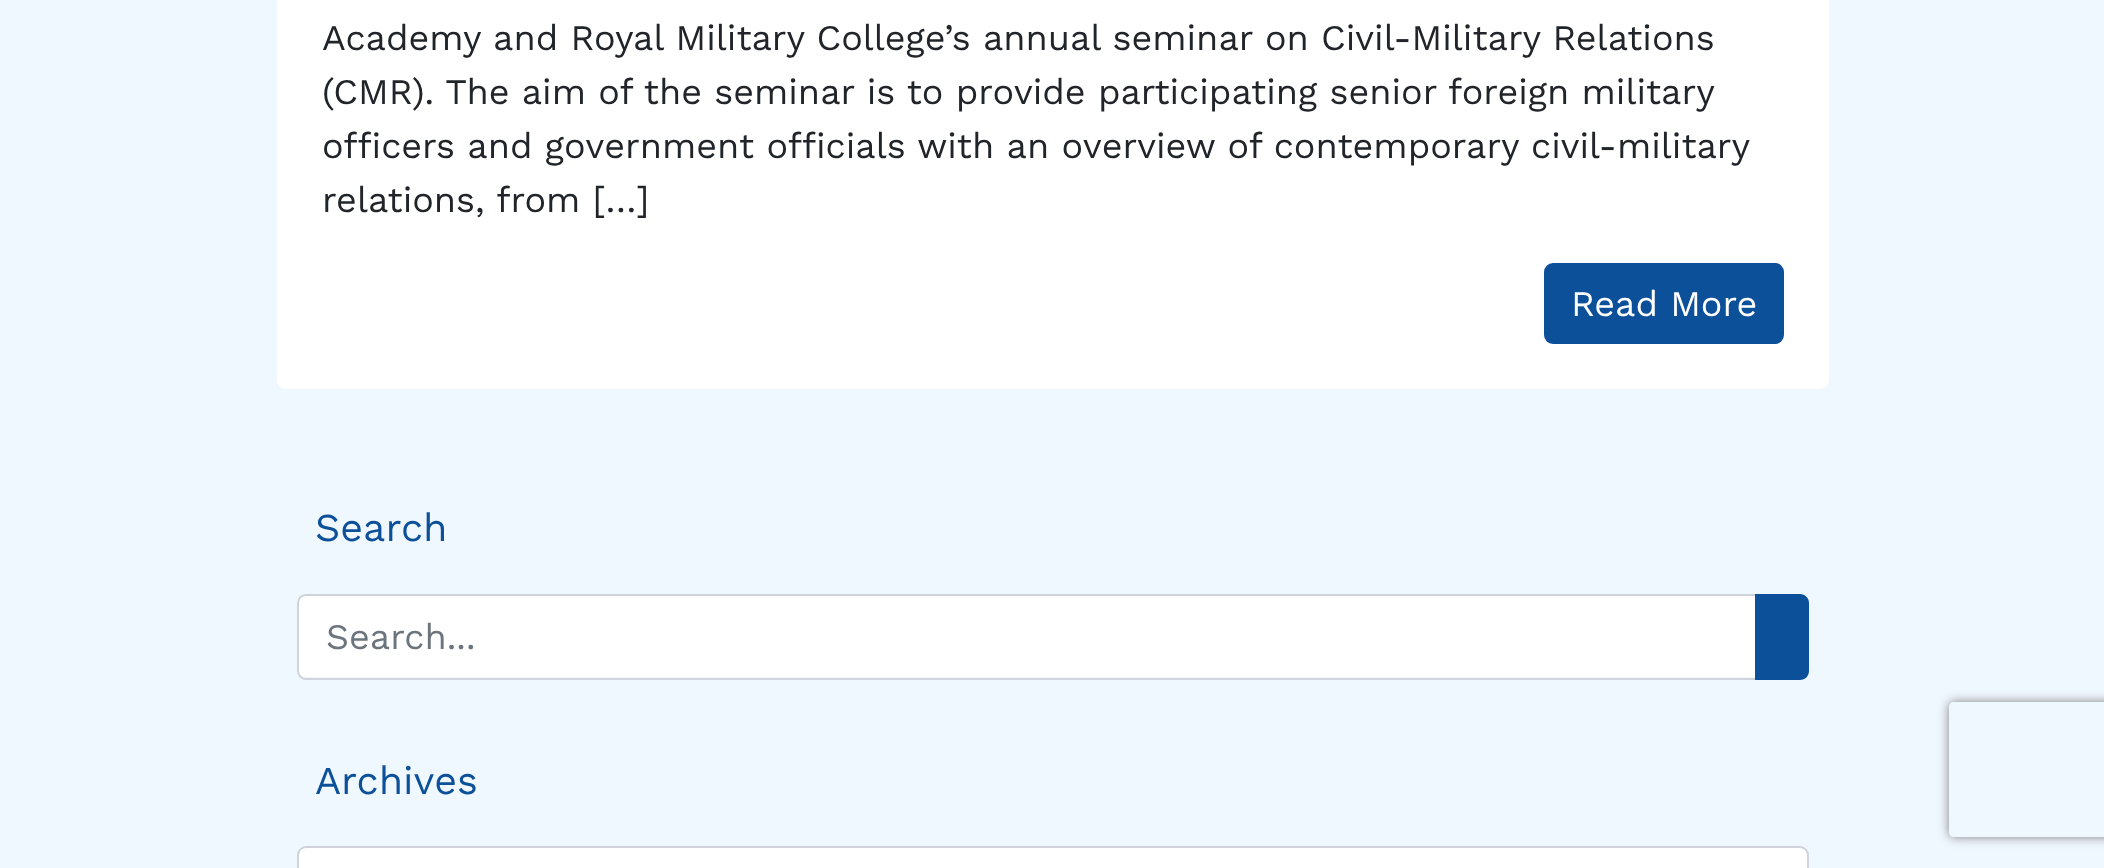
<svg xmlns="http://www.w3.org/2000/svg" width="2104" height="868">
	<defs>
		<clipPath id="clip1"><path d="M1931 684H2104V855H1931ZM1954 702H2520C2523 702 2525 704 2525 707V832C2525 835 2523 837 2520 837H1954C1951 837 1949 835 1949 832V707C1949 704 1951 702 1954 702Z" clip-rule="evenodd" /></clipPath>
	</defs>
	<rect width="100%" height="100%" fill="#F0F8FF" />
	<rect x="277" y="-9" width="1552" height="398" rx="9" fill="#FFFFFF" />
	<g font-family="Work Sans" font-size="36" fill="#212529">
		<text x="322" y="50">Academy and Royal Military College’s annual seminar on Civil-Military Relations</text>
		<text x="322" y="104">(CMR). The aim of the seminar is to provide participating senior foreign military</text>
		<text x="322" y="158">officers and government officials with an overview of contemporary civil-military</text>
		<text x="322" y="212">relations, from […]</text>
	</g>
	<rect x="1544" y="263" width="240" height="81" rx="9" fill="#0C509A" />
	<text x="1571" y="316" font-family="Work Sans" font-size="36" fill="#FFFFFF">Read More</text>
	<text x="315" y="541" font-family="Work Sans" font-size="39.5" fill="#0C509A">Search</text>
	<path d="M306 596H1755V677H306C302 677 299 674 299 670V603C299 599 302 596 306 596Z" fill="#FFFFFF" />
	<path d="M306 595H1756V679H306C301.5 679 298 675.5 298 671V603C298 598.5 301.5 595 306 595Z" fill="none" stroke="#CED4DA" stroke-width="2" />
	<text x="326" y="649" font-family="Work Sans" font-size="36" fill="#6C757D">Search...</text>
	<path d="M1755 594H1800C1805 594 1809 598 1809 603V671C1809 676 1805 680 1800 680H1755Z" fill="#0C509A" />
	<text x="315" y="794" font-family="Work Sans" font-size="39.5" fill="#0C509A">Archives</text>
	<rect x="299" y="848" width="1508" height="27" rx="7" fill="#FFFFFF" />
	<rect x="298" y="847" width="1510" height="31" rx="8" fill="none" stroke="#CED4DA" stroke-width="2" />
	<g clip-path="url(#clip1)">
		<rect x="1949" y="702" width="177" height="135" rx="5" fill="#808080" filter="blur(5.5px)" />
	</g>
</svg>
